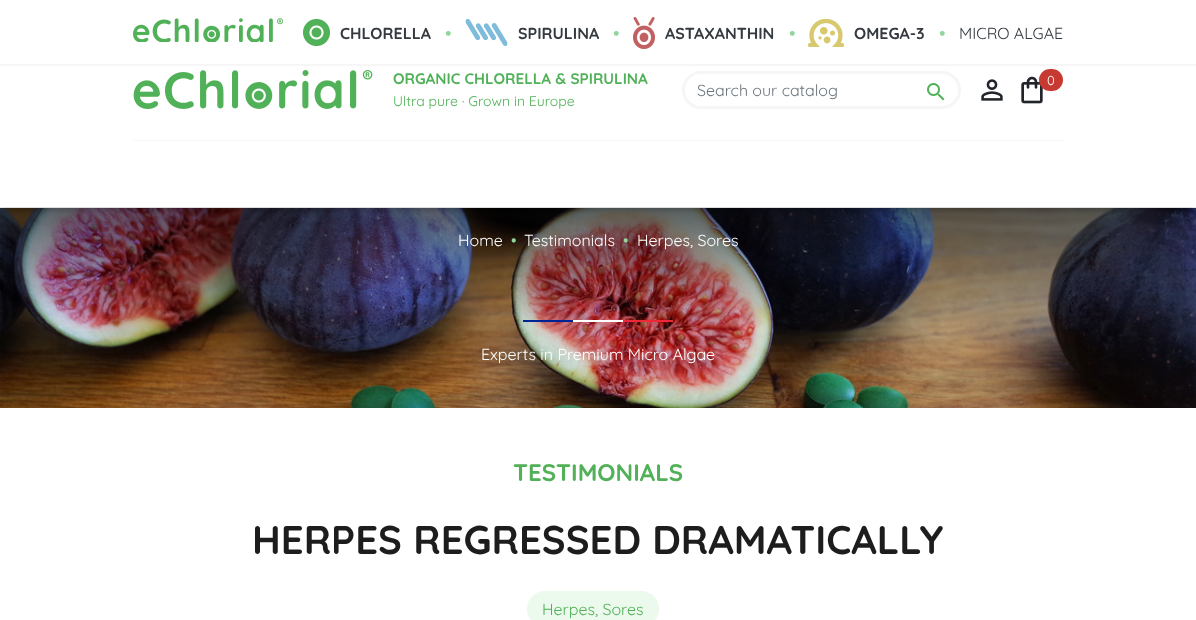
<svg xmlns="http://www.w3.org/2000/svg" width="1196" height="620">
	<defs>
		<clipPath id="clip1"><rect x="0" y="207" width="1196" height="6" /></clipPath>
	</defs>
	<rect width="100%" height="100%" fill="#FFFFFF" />
	<image x="0" y="208" width="1196" height="200" href="assets/img10.png" />
	<g clip-path="url(#clip1)">
		<rect x="0" y="2" width="1196" height="207" fill="#000000" fill-opacity="0.2" filter="blur(3px)" />
	</g>
	<rect x="0" y="64" width="1196" height="2" fill="#F6F6F6" />
	<image x="133" y="18" width="150" height="24" href="assets/img1.png" />
	<image x="303" y="19" width="27" height="27" href="assets/img2.png" />
	<text x="340" y="39" font-family="Quicksand" font-size="16" font-weight="700" fill="#343A40">CHLORELLA</text>
	<text x="445" y="40" font-family="Quicksand" font-size="19" fill="#90D69B">•</text>
	<image x="465" y="19" width="43" height="27" href="assets/img3.png" />
	<text x="518" y="39" font-family="Quicksand" font-size="16" font-weight="700" fill="#343A40">SPIRULINA</text>
	<text x="613" y="40" font-family="Quicksand" font-size="19" fill="#90D69B">•</text>
	<image x="633" y="17" width="22" height="32" href="assets/img4.png" />
	<text x="665" y="39" font-family="Quicksand" font-size="16" font-weight="700" fill="#343A40">ASTAXANTHIN</text>
	<text x="789" y="40" font-family="Quicksand" font-size="19" fill="#90D69B">•</text>
	<image x="808" y="19" width="36" height="28" href="assets/img5.png" />
	<text x="854" y="39" font-family="Quicksand" font-size="16" font-weight="700" fill="#343A40">OMEGA-3</text>
	<text x="939" y="40" font-family="Quicksand" font-size="19" fill="#90D69B">•</text>
	<text x="959" y="39" font-family="Quicksand" font-size="16" fill="#343A40">MICRO ALGAE</text>
	<rect x="133" y="140" width="930" height="1" fill="#F6F6F6" />
	<image x="133" y="70" width="240" height="39" href="assets/img6.png" />
	<text x="393" y="84" font-family="Quicksand" font-size="15.25" font-weight="700" fill="#51B158">ORGANIC CHLORELLA &amp; SPIRULINA</text>
	<text x="393" y="106" font-family="Quicksand" font-size="14" fill="#51B158">Ultra pure · Grown in Europe</text>
	<image x="981" y="79" width="22" height="22" href="assets/img7.png" />
	<image x="1021" y="76" width="22" height="28" href="assets/img8.png" />
	<rect x="1039" y="69" width="24" height="22" rx="11" fill="#C63A31" />
	<text x="1047" y="85" font-family="Quicksand" font-size="13" fill="#FFFFFF">0</text>
	<rect x="683.5" y="72.5" width="276" height="35" rx="17.5" fill="none" stroke="#F6F6F6" stroke-width="3" />
	<text x="697" y="96" font-family="Quicksand" font-size="16" fill="#6C757D">Search our catalog</text>
	<image x="927" y="83" width="18" height="18" href="assets/img9.png" />
	<text x="458" y="246" font-family="Quicksand" font-size="16" fill="#FFFFFF">Home</text>
	<text x="511" y="246" font-family="Quicksand" font-size="16" fill="#90D69B">•</text>
	<text x="524" y="246" font-family="Quicksand" font-size="16" fill="#FFFFFF">Testimonials</text>
	<text x="623" y="246" font-family="Quicksand" font-size="16" fill="#90D69B">•</text>
	<text x="637" y="246" font-family="Quicksand" font-size="16" fill="#FFFFFF">Herpes, Sores</text>
	<rect x="573" y="320" width="50" height="2" fill="#FFFFFF" />
	<rect x="623" y="320" width="50" height="2" fill="#ED2939" />
	<rect x="523" y="320" width="50" height="2" fill="#002395" />
	<text x="481" y="360" font-family="Quicksand" font-size="16" fill="#FFFFFF">Experts in Premium Micro Algae</text>
	<text x="513" y="481" font-family="Quicksand" font-size="24" font-weight="700" fill="#51B158">TESTIMONIALS</text>
	<text x="252" y="554" font-family="Quicksand" font-size="40" font-weight="700" fill="#1D1D1D">HERPES REGRESSED DRAMATICALLY</text>
	<rect x="527" y="591" width="132" height="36" rx="18" fill="#ECF9ED" />
	<text x="542" y="615" font-family="Quicksand" font-size="16" fill="#51B158">Herpes, Sores</text>
</svg>
